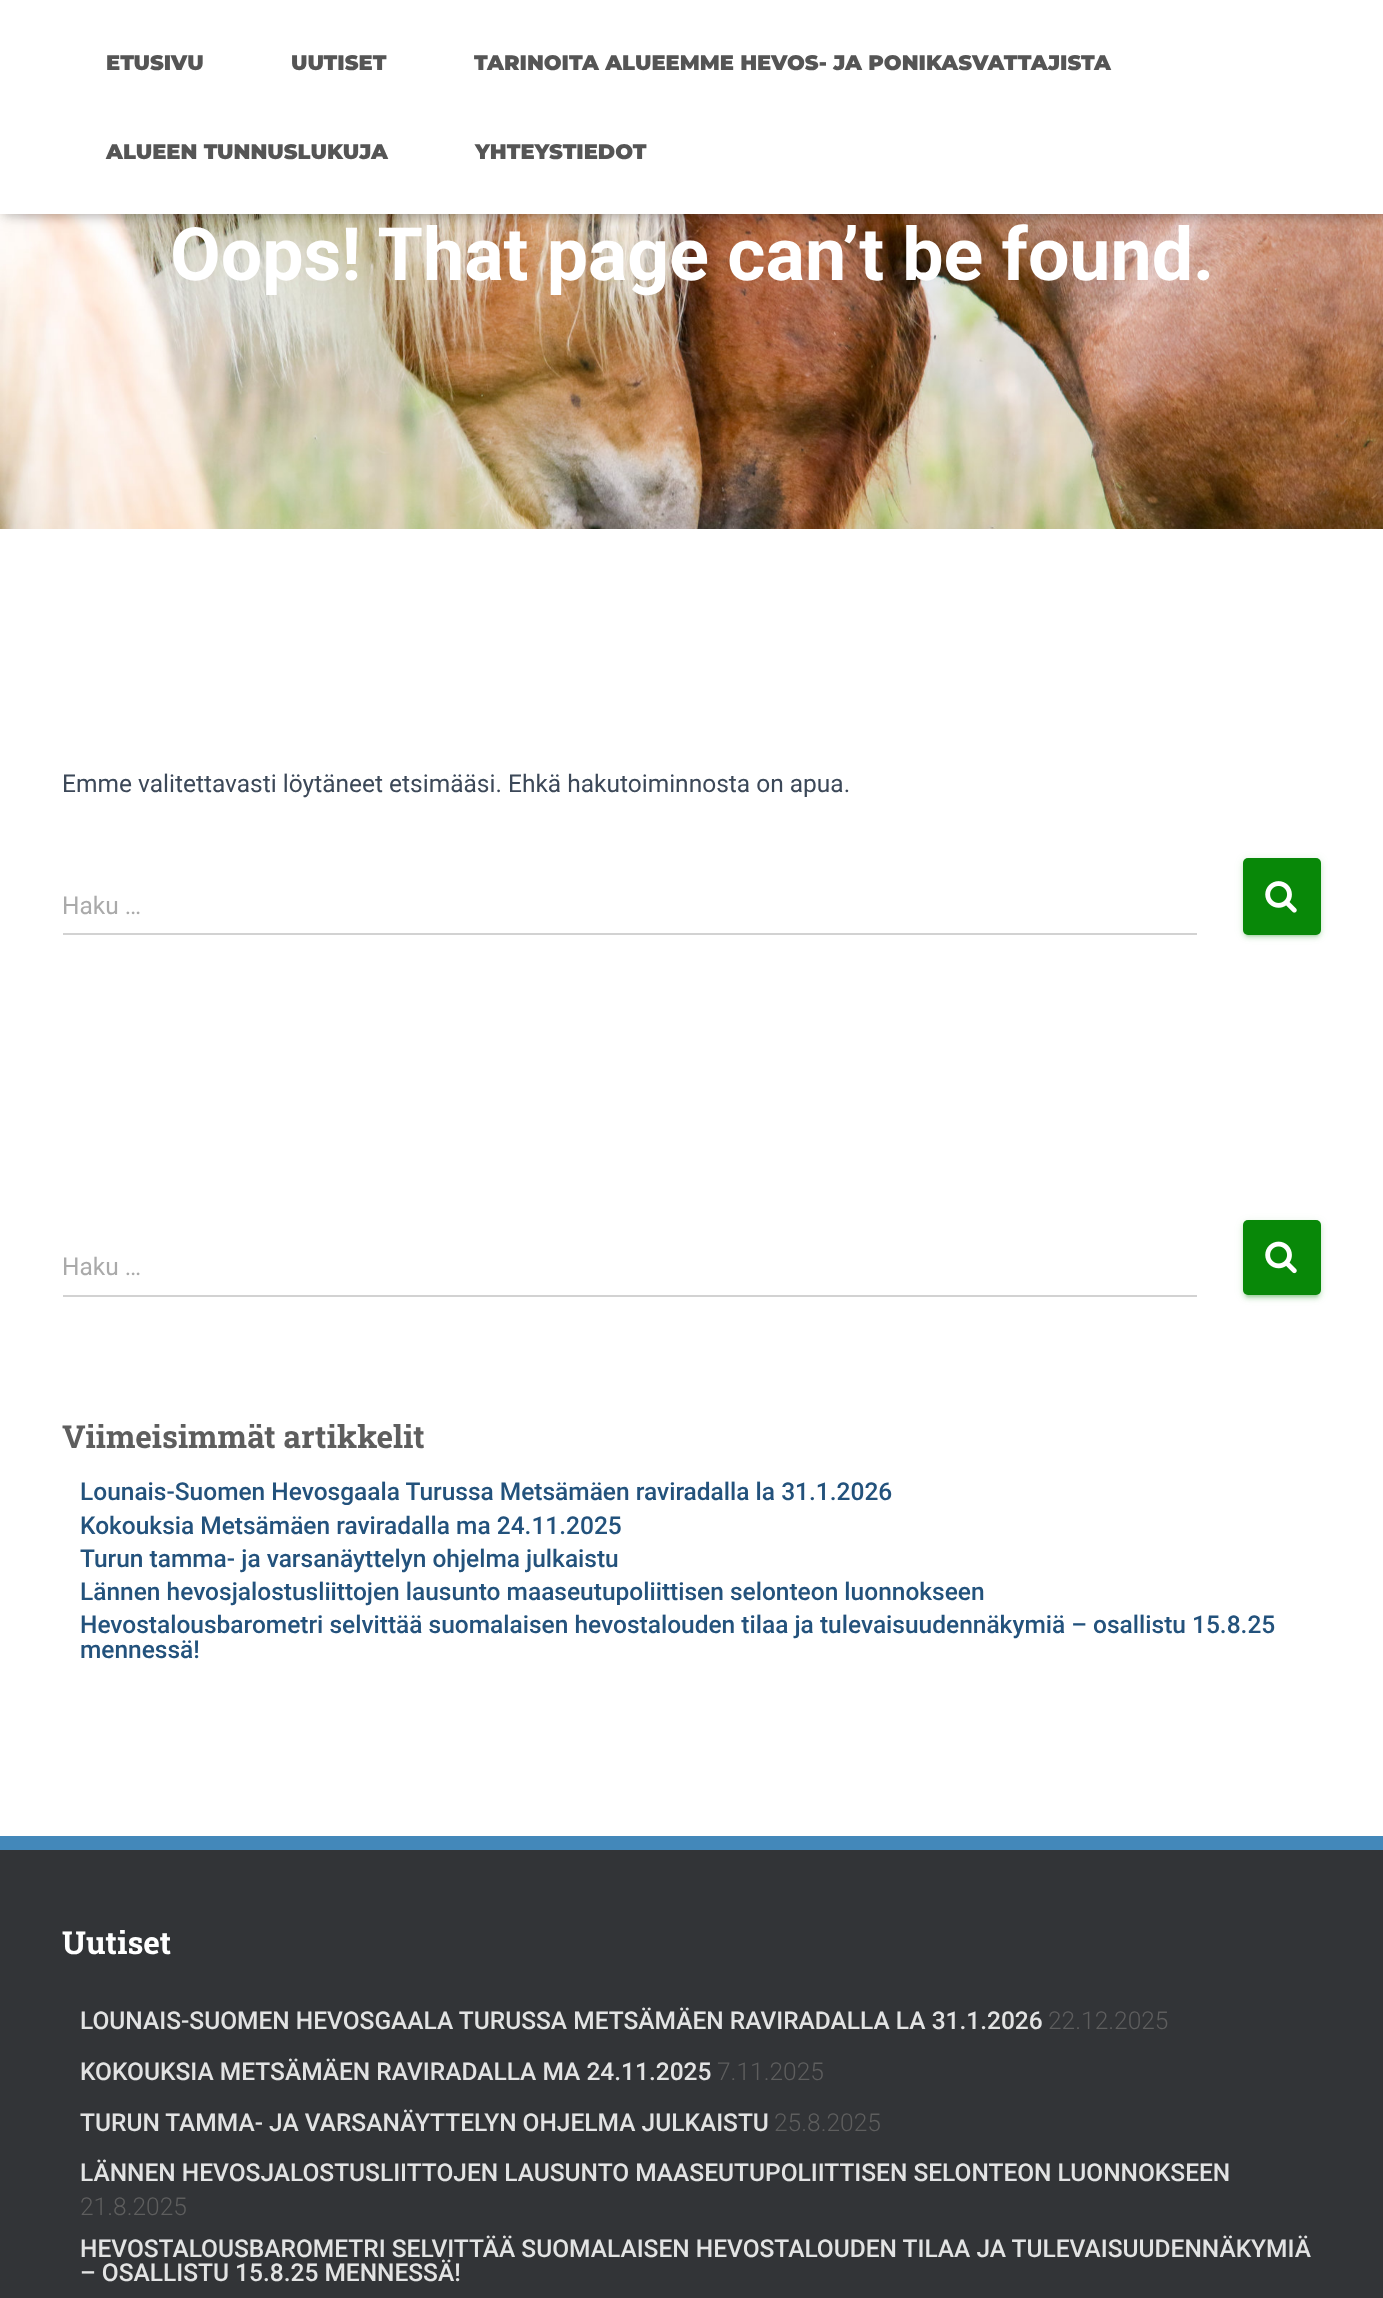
<svg xmlns="http://www.w3.org/2000/svg" width="1383" height="2298">
	<rect width="100%" height="100%" fill="#FFFFFF" />
	<image x="0" y="214" width="1383" height="315" href="assets/img1.png" />
	<rect x="4" y="11" width="1377" height="206" fill="#000000" fill-opacity="0.1" filter="blur(4.5px)" />
	<rect x="0" y="2" width="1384" height="213" fill="#000000" fill-opacity="0.12" filter="blur(9px)" />
	<rect x="11" y="12" width="1363" height="193" fill="#000000" fill-opacity="0.42" filter="blur(9px)" />
	<rect x="0" y="0" width="1383" height="214" fill="#FFFFFF" />
	<g font-family="Montserrat" font-size="21" font-weight="900" fill="#555555">
		<text x="106" y="70">ETUSIVU</text>
		<text x="291" y="70">UUTISET</text>
		<text x="474" y="70">TARINOITA ALUEEMME HEVOS- JA PONIKASVATTAJISTA</text>
		<text x="106" y="159">ALUEEN TUNNUSLUKUJA</text>
		<text x="475" y="159">YHTEYSTIEDOT</text>
	</g>
	<text x="170" y="280" font-family="Roboto" font-size="73.5" font-weight="700" fill="#FFFFFF">Oops! That page can’t be found.</text>
	<text x="62" y="792" font-family="Roboto" font-size="24.5" fill="#3C4858">Emme valitettavasti löytäneet etsimääsi. Ehkä hakutoiminnosta on apua.</text>
	<text x="62" y="914" font-family="Roboto" font-size="24.5" fill="#AAAAAA">Haku …</text>
	<rect x="63" y="933" width="1134" height="2" fill="#D2D2D2" />
	<rect x="1243" y="859" width="78" height="77" rx="5" fill="#088808" fill-opacity="0.12" filter="blur(4.5px)" />
	<rect x="1246" y="866" width="72" height="70" rx="2" fill="#088808" fill-opacity="0.2" filter="blur(1px)" />
	<rect x="1243" y="861" width="78" height="77" rx="5" fill="#088808" fill-opacity="0.14" filter="blur(2px)" />
	<rect x="1243" y="858" width="78" height="77" rx="5" fill="#088808" />
	<image x="1265" y="881" width="32" height="32" href="assets/img2.png" />
	<text x="62" y="1275" font-family="Roboto" font-size="24.5" fill="#AAAAAA">Haku …</text>
	<rect x="63" y="1295" width="1134" height="2" fill="#D2D2D2" />
	<rect x="1243" y="1222" width="78" height="75" rx="5" fill="#088808" fill-opacity="0.12" filter="blur(4.5px)" />
	<rect x="1246" y="1229" width="72" height="68" rx="2" fill="#088808" fill-opacity="0.2" filter="blur(1px)" />
	<rect x="1243" y="1223" width="78" height="76" rx="5" fill="#088808" fill-opacity="0.14" filter="blur(2px)" />
	<rect x="1243" y="1220" width="78" height="75" rx="5" fill="#088808" />
	<image x="1265" y="1241" width="32" height="33" href="assets/img3.png" />
	<text x="62" y="1448" font-family="Roboto Slab" font-size="31.5" font-weight="700" fill="#5E5E5E">Viimeisimmät artikkelit</text>
	<g font-family="Roboto" font-size="24.5" font-weight="500" fill="#23527C">
		<text x="80" y="1500">Lounais-Suomen Hevosgaala Turussa Metsämäen raviradalla la 31.1.2026</text>
		<text x="80" y="1534">Kokouksia Metsämäen raviradalla ma 24.11.2025</text>
		<text x="80" y="1567">Turun tamma- ja varsanäyttelyn ohjelma julkaistu</text>
		<text x="80" y="1600">Lännen hevosjalostusliittojen lausunto maaseutupoliittisen selonteon luonnokseen</text>
		<text x="80" y="1633">Hevostalousbarometri selvittää suomalaisen hevostalouden tilaa ja tulevaisuudennäkymiä – osallistu 15.8.25</text>
		<text x="80" y="1658">mennessä!</text>
	</g>
	<rect x="0" y="1850" width="1383" height="448" fill="#323437" />
	<rect x="0" y="1836" width="1383" height="14" fill="#4388BA" />
	<text x="62" y="1954" font-family="Roboto Slab" font-size="31.5" font-weight="700" fill="#FFFFFF">Uutiset</text>
	<text x="80" y="2029" font-family="Roboto" font-size="24.5" font-weight="500" fill="#E2E3E3">LOUNAIS-SUOMEN HEVOSGAALA TURUSSA METSÄMÄEN RAVIRADALLA LA 31.1.2026</text>
	<text x="1048" y="2029" font-family="Roboto" font-size="24.5" font-weight="300" fill="#5E5E5E">22.12.2025</text>
	<text x="80" y="2080" font-family="Roboto" font-size="24.5" font-weight="500" fill="#E2E3E3">KOKOUKSIA METSÄMÄEN RAVIRADALLA MA 24.11.2025</text>
	<text x="717" y="2080" font-family="Roboto" font-size="24.5" font-weight="300" fill="#5E5E5E">7.11.2025</text>
	<text x="80" y="2131" font-family="Roboto" font-size="24.5" font-weight="500" fill="#E2E3E3">TURUN TAMMA- JA VARSANÄYTTELYN OHJELMA JULKAISTU</text>
	<text x="774" y="2131" font-family="Roboto" font-size="24.5" font-weight="300" fill="#5E5E5E">25.8.2025</text>
	<text x="80" y="2181" font-family="Roboto" font-size="24.5" font-weight="500" fill="#E2E3E3">LÄNNEN HEVOSJALOSTUSLIITTOJEN LAUSUNTO MAASEUTUPOLIITTISEN SELONTEON LUONNOKSEEN</text>
	<text x="80" y="2215" font-family="Roboto" font-size="24.5" font-weight="300" fill="#5E5E5E">21.8.2025</text>
	<g font-family="Roboto" font-size="24.5" font-weight="500" fill="#E2E3E3">
		<text x="80" y="2257">HEVOSTALOUSBAROMETRI SELVITTÄÄ SUOMALAISEN HEVOSTALOUDEN TILAA JA TULEVAISUUDENNÄKYMIÄ</text>
		<text x="80" y="2281">– OSALLISTU 15.8.25 MENNESSÄ!</text>
	</g>
</svg>
